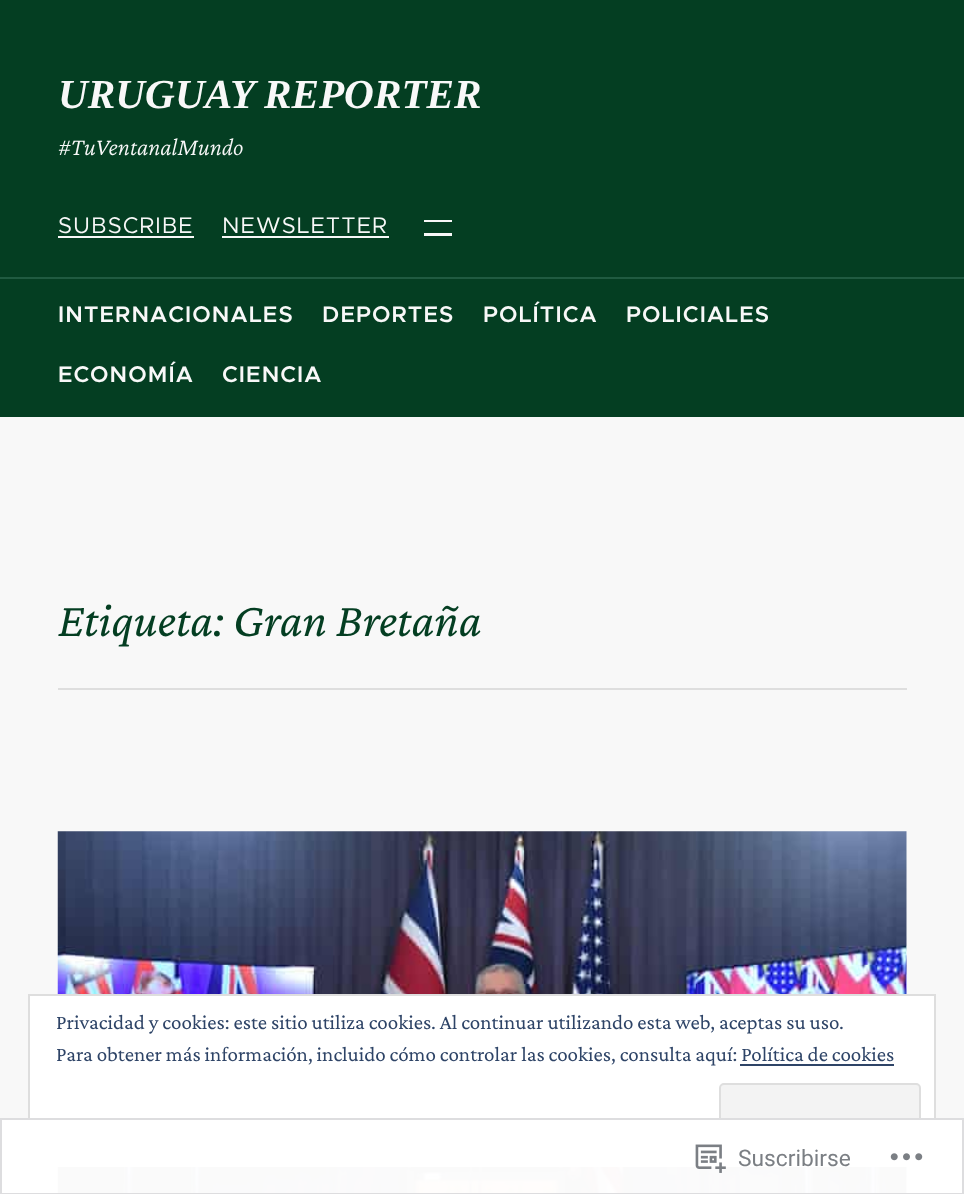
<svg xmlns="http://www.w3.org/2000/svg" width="964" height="1194">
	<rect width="100%" height="100%" fill="#F8F8F8" />
	<rect x="0" y="0" width="964" height="417" fill="#043E22" />
	<text x="58" y="108" font-family="Liberation Serif" font-size="41.25" font-weight="700" font-style="italic" fill="#F8F8F8">URUGUAY REPORTER</text>
	<text x="58" y="155" font-family="Crimson Pro" font-size="24.75" font-weight="300" font-style="italic" fill="#F8F8F8">#TuVentanalMundo</text>
	<text x="58" y="233" font-family="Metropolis" font-size="22.75" letter-spacing="1.1" fill="#F8F8F8">SUBSCRIBE</text>
	<rect x="58" y="236" width="136" height="2" fill="#F8F8F8" />
	<text x="222" y="233" font-family="Metropolis" font-size="22.75" letter-spacing="1.1" fill="#F8F8F8">NEWSLETTER</text>
	<rect x="222" y="236" width="167" height="2" fill="#F8F8F8" />
	<rect x="424" y="220" width="28" height="2" fill="#F8F8F8" />
	<rect x="424" y="233" width="28" height="3" fill="#F8F8F8" />
	<rect x="0" y="277" width="964" height="2" fill="#205B41" />
	<g font-family="Metropolis" font-size="22.75" font-weight="600" letter-spacing="1.1" fill="#F8F8F8">
		<text x="58" y="322">INTERNACIONALES</text>
		<text x="322" y="322">DEPORTES</text>
		<text x="483" y="322">POLÍTICA</text>
		<text x="626" y="322">POLICIALES</text>
		<text x="58" y="382">ECONOMÍA</text>
		<text x="222" y="382">CIENCIA</text>
	</g>
	<rect x="58" y="688" width="849" height="2" fill="#DEDEDE" />
	<text x="58" y="636" font-family="Crimson Pro" font-size="48.5" font-style="italic" fill="#043E22">Etiqueta: Gran Bretaña</text>
	<image x="57" y="831" width="850" height="363" href="assets/img1.png" />
	<rect x="29" y="995" width="906" height="171" fill="#FFFFFF" stroke="#DEDEDE" stroke-width="2" />
	<g font-family="Crimson Pro" font-size="21" fill="#2E4467">
		<text x="56" y="1029">Privacidad y cookies: este sitio utiliza cookies. Al continuar utilizando esta web, aceptas su uso.</text>
		<text x="56" y="1061">Para obtener más información, incluido cómo controlar las cookies, consulta aquí: Política de cookies</text>
	</g>
	<rect x="740" y="1064" width="154" height="2" fill="#2E4467" />
	<rect x="720" y="1084" width="200" height="67" rx="4" fill="#F3F3F3" stroke="#DEDEDE" stroke-width="2" />
	<rect x="0" y="1118" width="964" height="76" fill="#FFFFFF" fill-opacity="0.98" />
	<rect x="1" y="1119" width="962" height="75" fill="none" stroke="#DCDCDE" stroke-opacity="0.98" stroke-width="2" />
	<image x="695" y="1144" width="31" height="29" href="assets/img2.png" />
	<text x="738" y="1166" font-family="Roboto" font-size="22.75" fill="#7B7F84">Suscribirse</text>
	<image x="890" y="1153" width="33" height="8" href="assets/img3.png" />
</svg>
